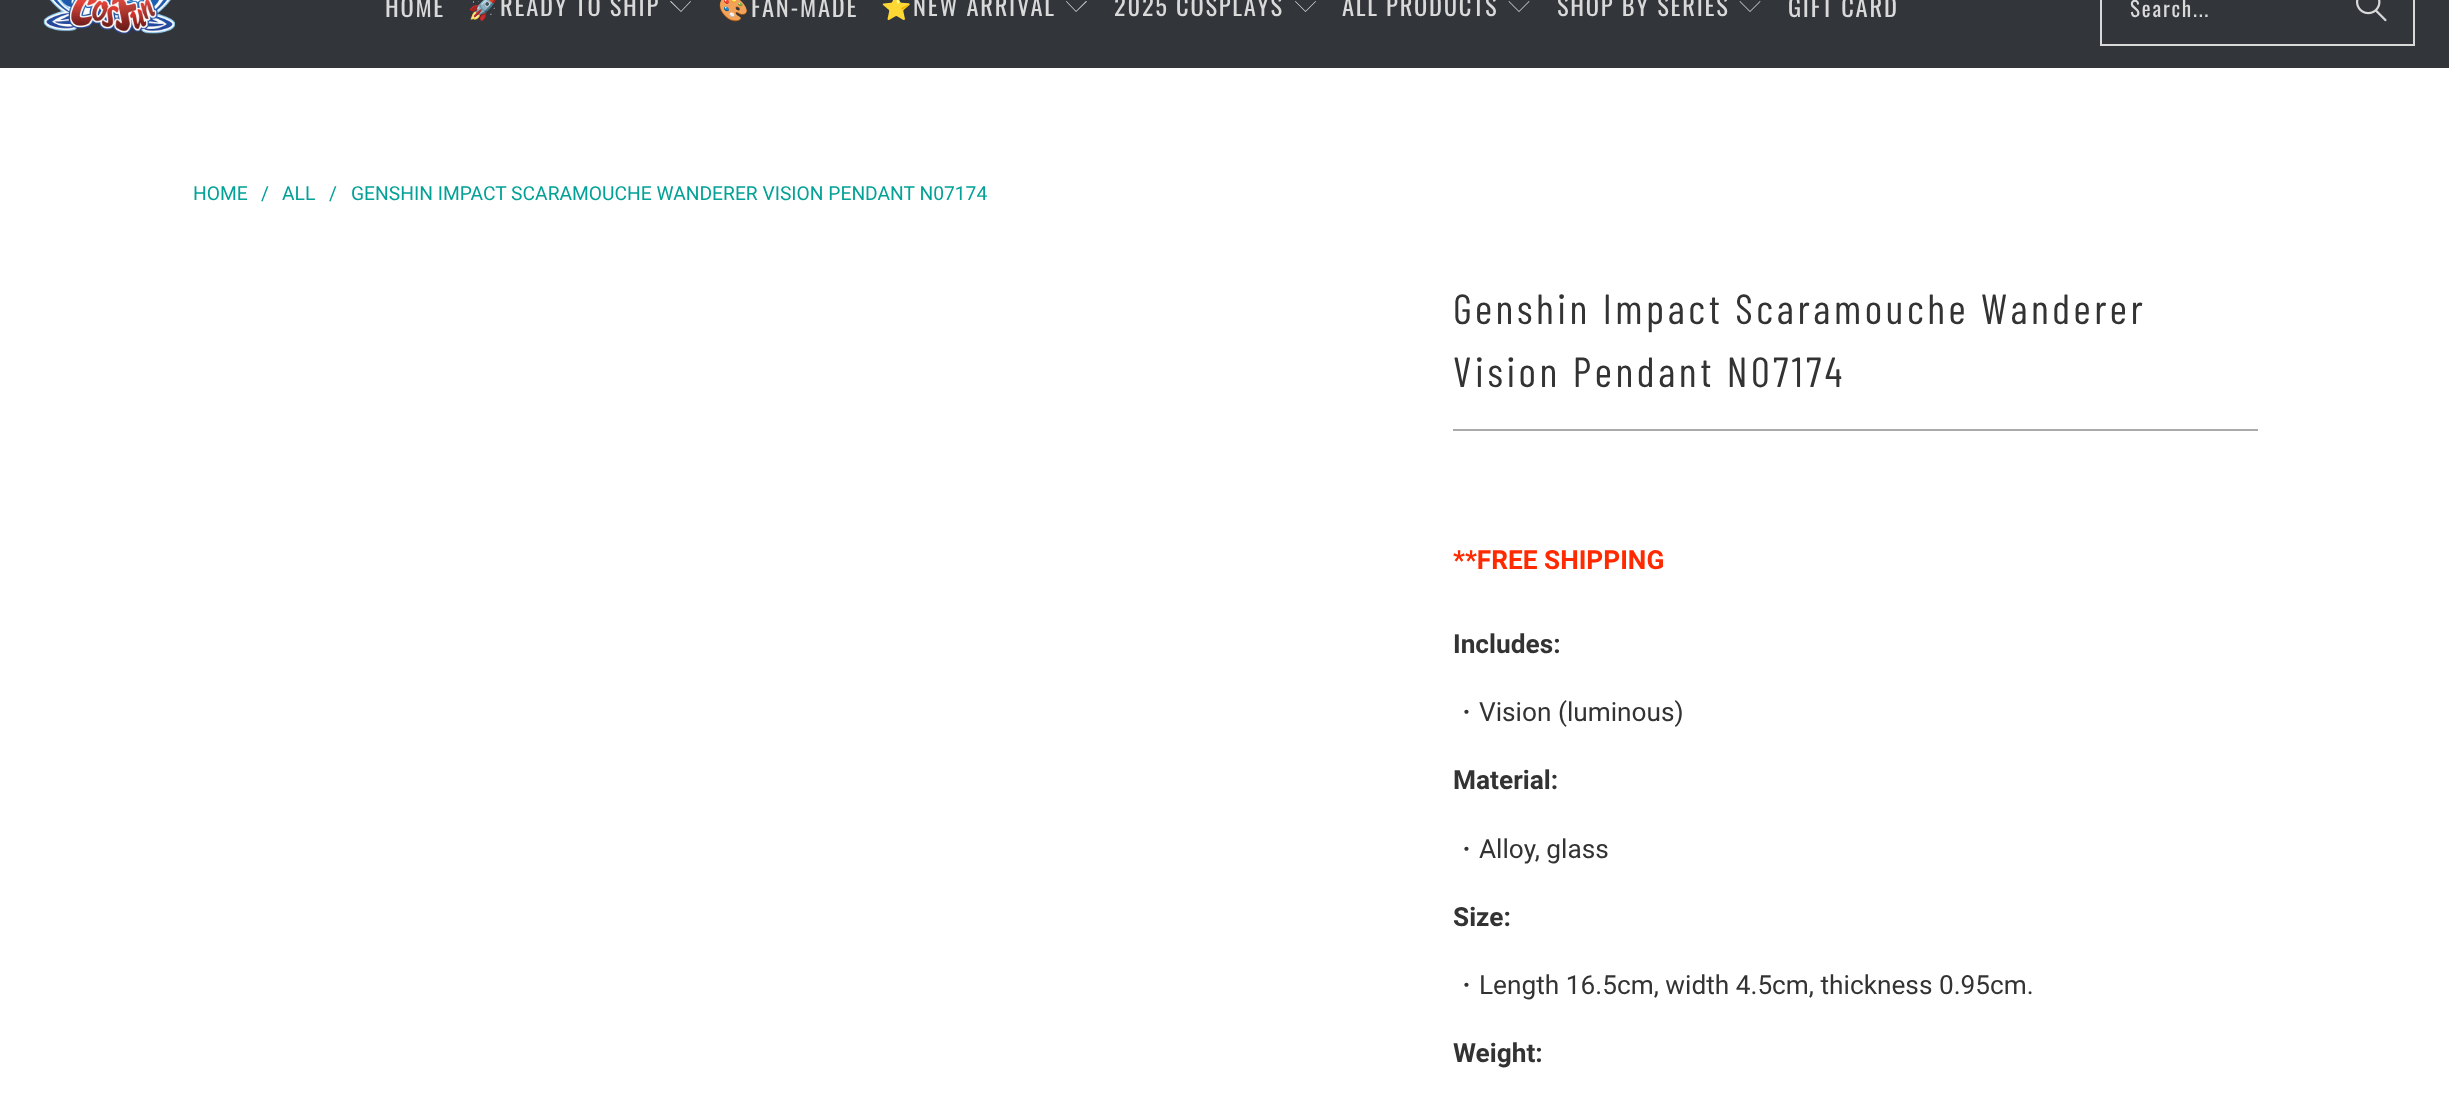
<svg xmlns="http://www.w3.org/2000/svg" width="2449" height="1109">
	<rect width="100%" height="100%" fill="#FFFFFF" />
	<rect x="0" y="0" width="2449" height="68" fill="#323539" />
	<image x="43" y="0" width="132" height="34" href="assets/img1.png" />
	<text x="385" y="17" font-family="Oswald" font-size="24.5" letter-spacing="1.75" fill="#D9D9D9">HOME</text>
	<text x="468" y="16" font-family="Noto Color Emoji" font-size="24.5" letter-spacing="1.75" fill="#D9D9D9">🚀</text>
	<text x="500" y="16" font-family="Oswald" font-size="24.5" letter-spacing="1.75" fill="#D9D9D9">READY TO SHIP</text>
	<path d="M681 12L670 1.5L671 1L681 11L690.5 1L691 1.5Z" fill="#D9D9D9" />
	<text x="718" y="17" font-family="Noto Color Emoji" font-size="24.5" letter-spacing="1.75" fill="#D9D9D9">🎨</text>
	<text x="751" y="17" font-family="Oswald" font-size="24.5" letter-spacing="1.75" fill="#D9D9D9">FAN-MADE</text>
	<text x="881" y="16" font-family="Noto Color Emoji" font-size="24.5" letter-spacing="1.75" fill="#D9D9D9">⭐</text>
	<text x="913" y="16" font-family="Oswald" font-size="24.5" letter-spacing="1.75" fill="#D9D9D9">NEW ARRIVAL</text>
	<path d="M1076 12L1066 1.5L1066.5 1L1076 11L1086 1L1087 1.5Z" fill="#D9D9D9" />
	<text x="1114" y="16" font-family="Oswald" font-size="24.5" letter-spacing="1.75" fill="#D9D9D9">2025 COSPLAYS</text>
	<path d="M1305.5 12L1295 1.5L1295.5 1L1305.5 11L1315.5 1L1316 1.5Z" fill="#D9D9D9" />
	<text x="1342" y="16" font-family="Oswald" font-size="24.5" letter-spacing="1.75" fill="#D9D9D9">ALL PRODUCTS</text>
	<path d="M1519 12L1508.5 1.5L1509 1L1519 11L1529 1L1529.5 1.5Z" fill="#D9D9D9" />
	<text x="1557" y="16" font-family="Oswald" font-size="24.5" letter-spacing="1.75" fill="#D9D9D9">SHOP BY SERIES</text>
	<path d="M1750 12L1739.5 1.5L1740 1L1750 11L1760 1L1760.5 1.5Z" fill="#D9D9D9" />
	<text x="1788" y="17" font-family="Oswald" font-size="24.5" letter-spacing="1.75" fill="#D9D9D9">GIFT CARD</text>
	<rect x="2101" y="-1" width="313" height="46" fill="none" stroke="#D9D9D9" stroke-width="2" />
	<text x="2130" y="17" font-family="Oswald" font-size="21" letter-spacing="1.75" fill="#D9D9D9">Search...</text>
	<image x="2356" y="0" width="31" height="22" href="assets/img2.png" />
	<g font-family="Roboto" font-size="19.25" fill="#03A196">
		<text x="193" y="200">HOME</text>
		<text x="261" y="200">/</text>
		<text x="282" y="200">ALL</text>
		<text x="329" y="200">/</text>
		<text x="351" y="200">GENSHIN IMPACT SCARAMOUCHE WANDERER VISION PENDANT N07174</text>
	</g>
	<g font-family="Barlow Condensed" font-size="42" letter-spacing="3.5" fill="#333333">
		<text x="1453" y="324">Genshin Impact Scaramouche Wanderer</text>
		<text x="1453" y="387">Vision Pendant N07174</text>
	</g>
	<rect x="1453" y="429" width="805" height="2" fill="#AAAAAA" />
	<text x="1453" y="569" font-family="Roboto" font-size="26.25" font-weight="700" fill="#FF2A00">**FREE SHIPPING</text>
	<text x="1453" y="653" font-family="Roboto" font-size="26.25" font-weight="700" fill="#333333">Includes:</text>
	<text x="1453" y="721" font-family="WenQuanYi Zen Hei" font-size="26.25" font-weight="500" fill="#333333">・</text>
	<text x="1479" y="721" font-family="Roboto" font-size="26.25" fill="#333333">Vision (luminous)</text>
	<text x="1453" y="789" font-family="Roboto" font-size="26.25" font-weight="700" fill="#333333">Material:</text>
	<text x="1453" y="858" font-family="WenQuanYi Zen Hei" font-size="26.25" font-weight="500" fill="#333333">・</text>
	<text x="1479" y="858" font-family="Roboto" font-size="26.25" fill="#333333">Alloy, glass</text>
	<text x="1453" y="926" font-family="Roboto" font-size="26.25" font-weight="700" fill="#333333">Size:</text>
	<text x="1453" y="994" font-family="WenQuanYi Zen Hei" font-size="26.25" font-weight="500" fill="#333333">・</text>
	<text x="1479" y="994" font-family="Roboto" font-size="26.25" fill="#333333">Length 16.5cm, width 4.5cm, thickness 0.95cm.</text>
	<text x="1453" y="1062" font-family="Roboto" font-size="26.25" font-weight="700" fill="#333333">Weight:</text>
</svg>
